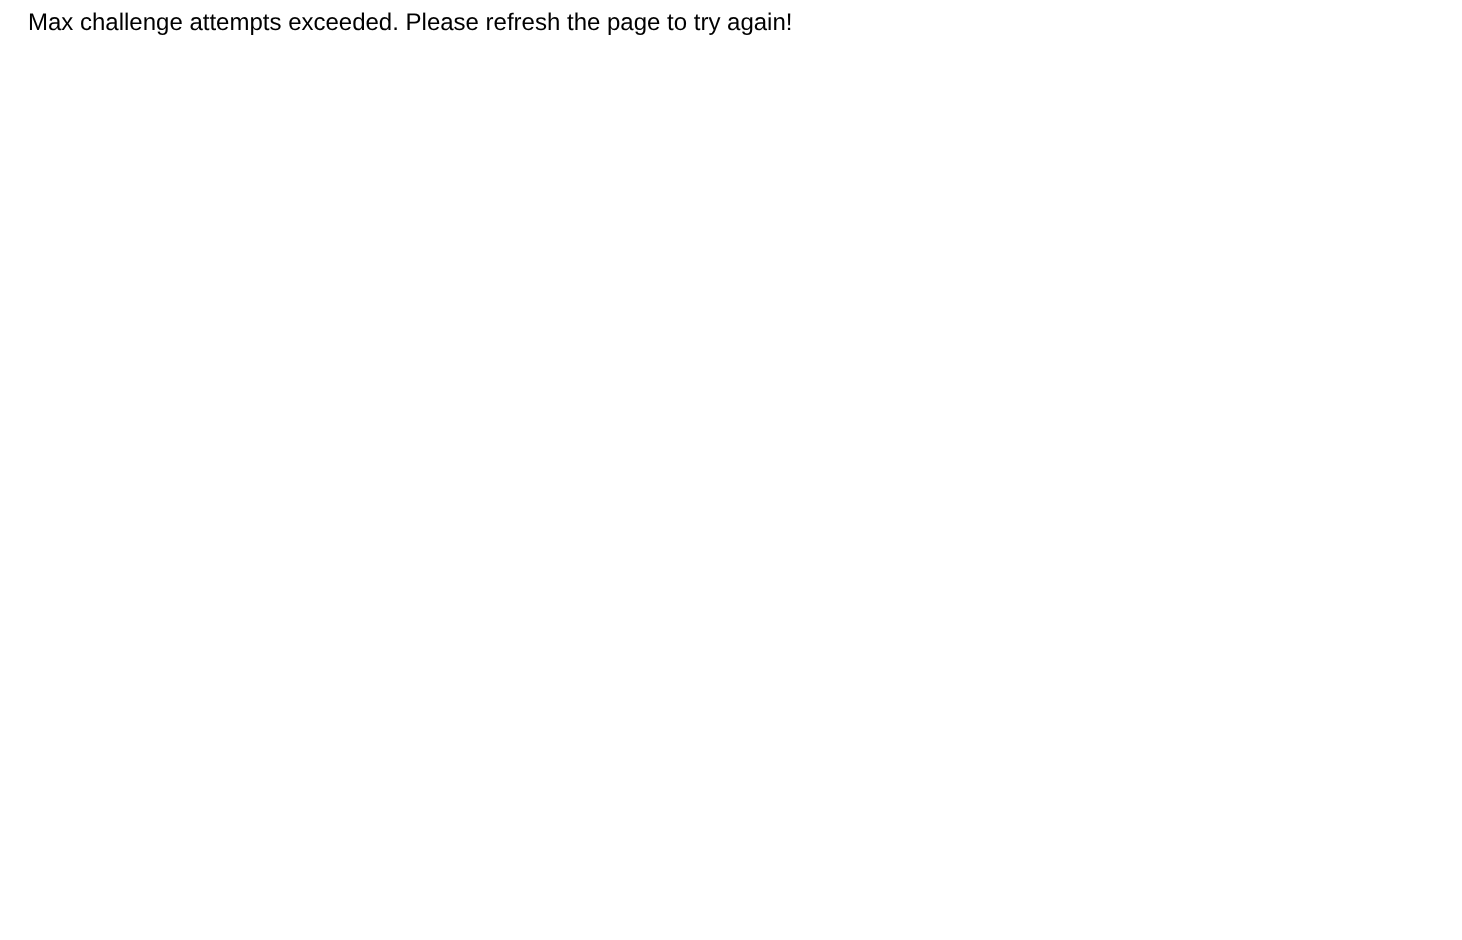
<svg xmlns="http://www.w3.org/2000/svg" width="1462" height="940">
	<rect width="100%" height="100%" fill="#FFFFFF" />
	<text x="28" y="30" font-family="Liberation Sans" font-size="24" fill="#000000">Max challenge attempts exceeded. Please refresh the page to try again!</text>
</svg>
